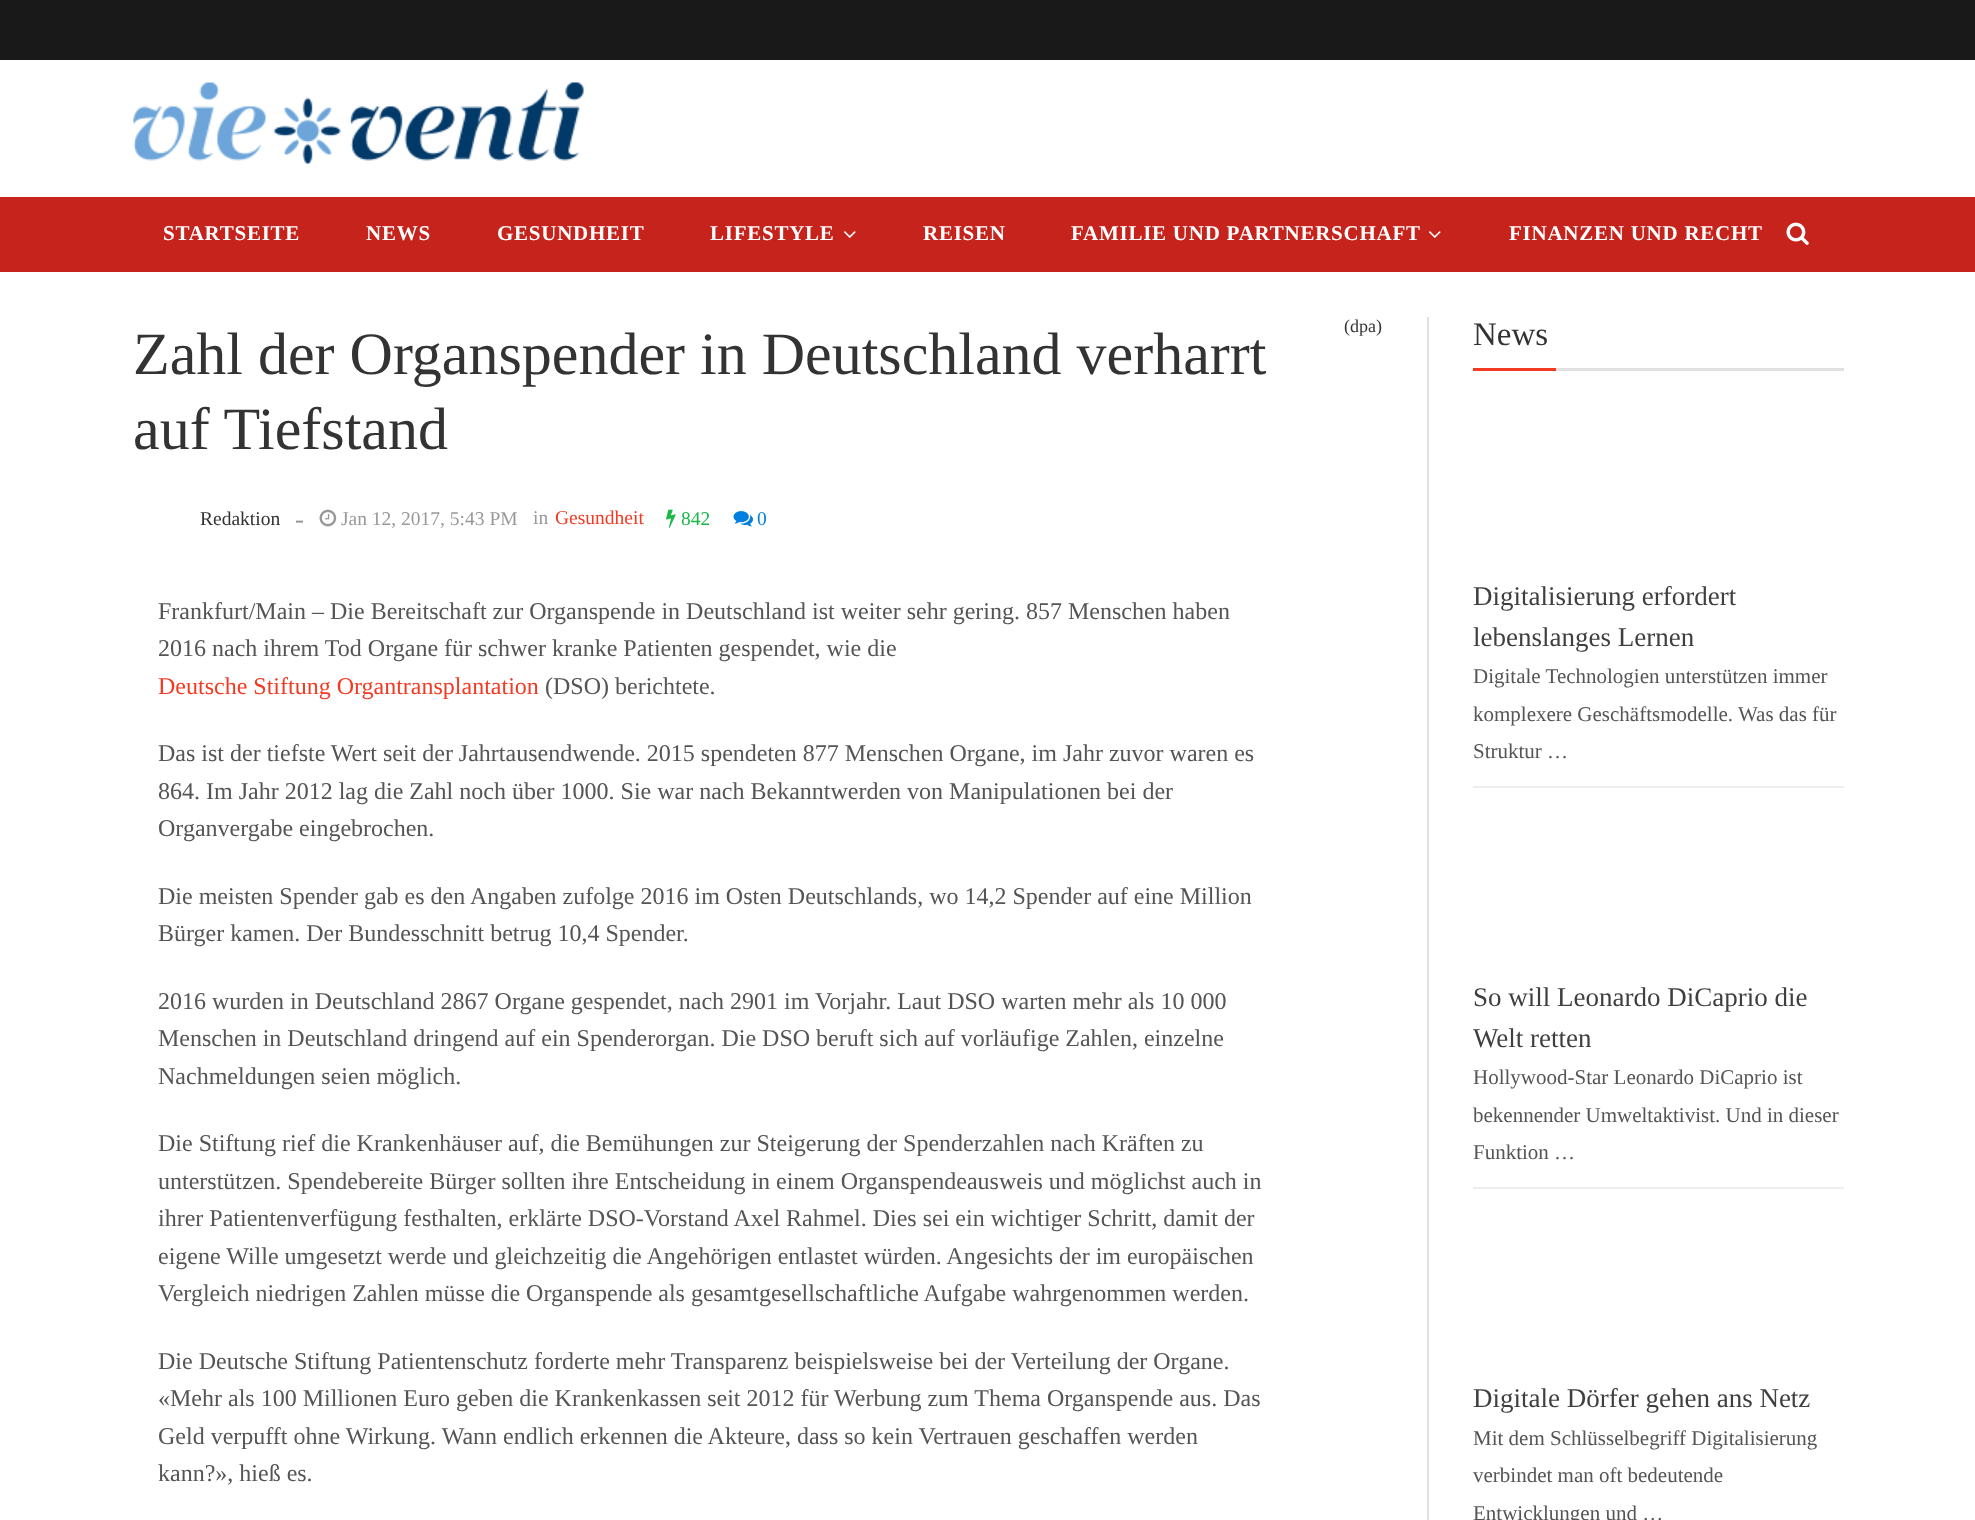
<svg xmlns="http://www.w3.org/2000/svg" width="1975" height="1520">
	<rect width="100%" height="100%" fill="#FFFFFF" />
	<rect x="0" y="0" width="1975" height="60" fill="#191919" />
	<image x="133" y="82" width="451" height="82" href="assets/img1.png" />
	<rect x="0" y="197" width="1975" height="75" fill="#C6231D" />
	<g font-family="Liberation Serif" font-size="21" font-weight="700" letter-spacing="0.75" fill="#FFFFFF">
		<text x="163" y="240">STARTSEITE</text>
		<text x="366" y="240">NEWS</text>
		<text x="497" y="240">GESUNDHEIT</text>
		<text x="710" y="240">LIFESTYLE</text>
	</g>
	<image x="844" y="231" width="12" height="7" href="assets/img2.png" />
	<g font-family="Liberation Serif" font-size="21" font-weight="700" letter-spacing="0.75" fill="#FFFFFF">
		<text x="923" y="240">REISEN</text>
		<text x="1071" y="240">FAMILIE UND PARTNERSCHAFT</text>
	</g>
	<image x="1429" y="231" width="12" height="7" href="assets/img2.png" />
	<text x="1509" y="240" font-family="Liberation Serif" font-size="21" font-weight="700" letter-spacing="0.75" fill="#FFFFFF">FINANZEN UND RECHT</text>
	<image x="1786" y="222" width="23" height="23" href="assets/img3.png" />
	<text x="1344" y="332" font-family="Liberation Serif" font-size="18" fill="#333333">(dpa)</text>
	<g font-family="Liberation Serif" font-size="60" fill="#333333">
		<text x="133" y="374">Zahl der Organspender in Deutschland verharrt</text>
		<text x="133" y="449">auf Tiefstand</text>
	</g>
	<text x="200" y="525" font-family="Liberation Serif" font-size="19.5" fill="#333333">Redaktion</text>
	<text x="295" y="528" font-family="Liberation Serif" font-size="27" fill="#999999">-</text>
	<image x="319" y="509" width="18" height="18" href="assets/img4.png" />
	<g font-family="Liberation Serif" font-size="19.5" fill="#999999">
		<text x="341" y="525">Jan 12, 2017, 5:43 PM</text>
		<text x="533" y="524">in</text>
	</g>
	<text x="555" y="524" font-family="Liberation Serif" font-size="19.5" fill="#F33A22">Gesundheit</text>
	<image x="666" y="509" width="10" height="19" href="assets/img5.png" />
	<text x="681" y="525" font-family="Liberation Serif" font-size="19.5" fill="#1EB848">842</text>
	<image x="733" y="511" width="20" height="16" href="assets/img6.png" />
	<text x="757" y="525" font-family="Liberation Serif" font-size="19.5" fill="#007FE0">0</text>
	<g font-family="Liberation Serif" font-size="24" fill="#555555">
		<text x="158" y="619">Frankfurt/Main – Die Bereitschaft zur Organspende in Deutschland ist weiter sehr gering. 857 Menschen haben</text>
		<text x="158" y="656">2016 nach ihrem Tod Organe für schwer kranke Patienten gespendet, wie die</text>
	</g>
	<text x="158" y="694" font-family="Liberation Serif" font-size="24" fill="#F33A22">Deutsche Stiftung Organtransplantation</text>
	<g font-family="Liberation Serif" font-size="24" fill="#555555">
		<text x="545" y="694">(DSO) berichtete.</text>
		<text x="158" y="761">Das ist der tiefste Wert seit der Jahrtausendwende. 2015 spendeten 877 Menschen Organe, im Jahr zuvor waren es</text>
		<text x="158" y="799">864. Im Jahr 2012 lag die Zahl noch über 1000. Sie war nach Bekanntwerden von Manipulationen bei der</text>
		<text x="158" y="836">Organvergabe eingebrochen.</text>
		<text x="158" y="904">Die meisten Spender gab es den Angaben zufolge 2016 im Osten Deutschlands, wo 14,2 Spender auf eine Million</text>
		<text x="158" y="941">Bürger kamen. Der Bundesschnitt betrug 10,4 Spender.</text>
		<text x="158" y="1009">2016 wurden in Deutschland 2867 Organe gespendet, nach 2901 im Vorjahr. Laut DSO warten mehr als 10 000</text>
		<text x="158" y="1046">Menschen in Deutschland dringend auf ein Spenderorgan. Die DSO beruft sich auf vorläufige Zahlen, einzelne</text>
		<text x="158" y="1084">Nachmeldungen seien möglich.</text>
		<text x="158" y="1151">Die Stiftung rief die Krankenhäuser auf, die Bemühungen zur Steigerung der Spenderzahlen nach Kräften zu</text>
		<text x="158" y="1189">unterstützen. Spendebereite Bürger sollten ihre Entscheidung in einem Organspendeausweis und möglichst auch in</text>
		<text x="158" y="1226">ihrer Patientenverfügung festhalten, erklärte DSO-Vorstand Axel Rahmel. Dies sei ein wichtiger Schritt, damit der</text>
		<text x="158" y="1264">eigene Wille umgesetzt werde und gleichzeitig die Angehörigen entlastet würden. Angesichts der im europäischen</text>
		<text x="158" y="1301">Vergleich niedrigen Zahlen müsse die Organspende als gesamtgesellschaftliche Aufgabe wahrgenommen werden.</text>
		<text x="158" y="1369">Die Deutsche Stiftung Patientenschutz forderte mehr Transparenz beispielsweise bei der Verteilung der Organe.</text>
		<text x="158" y="1406">«Mehr als 100 Millionen Euro geben die Krankenkassen seit 2012 für Werbung zum Thema Organspende aus. Das</text>
		<text x="158" y="1444">Geld verpufft ohne Wirkung. Wann endlich erkennen die Akteure, dass so kein Vertrauen geschaffen werden</text>
		<text x="158" y="1481">kann?», hieß es.</text>
	</g>
	<rect x="1427" y="317" width="2" height="1203" fill="#E1E1E1" />
	<rect x="1556" y="368" width="288" height="3" fill="#E1E1E1" />
	<text x="1473" y="345" font-family="Liberation Serif" font-size="33" fill="#333333">News</text>
	<rect x="1473" y="368" width="83" height="3" fill="#F33A22" />
	<rect x="1473" y="786" width="371" height="2" fill="#EEEEEE" />
	<g font-family="Liberation Serif" font-size="27" fill="#3F3F3F">
		<text x="1473" y="605">Digitalisierung erfordert</text>
		<text x="1473" y="646">lebenslanges Lernen</text>
	</g>
	<g font-family="Liberation Serif" font-size="21" fill="#555555">
		<text x="1473" y="683">Digitale Technologien unterstützen immer</text>
		<text x="1473" y="721">komplexere Geschäftsmodelle. Was das für</text>
		<text x="1473" y="758">Struktur …</text>
	</g>
	<rect x="1473" y="1187" width="371" height="2" fill="#EEEEEE" />
	<g font-family="Liberation Serif" font-size="27" fill="#3F3F3F">
		<text x="1473" y="1006">So will Leonardo DiCaprio die</text>
		<text x="1473" y="1047">Welt retten</text>
	</g>
	<g font-family="Liberation Serif" font-size="21" fill="#555555">
		<text x="1473" y="1084">Hollywood-Star Leonardo DiCaprio ist</text>
		<text x="1473" y="1122">bekennender Umweltaktivist. Und in dieser</text>
		<text x="1473" y="1159">Funktion …</text>
	</g>
	<text x="1473" y="1407" font-family="Liberation Serif" font-size="27" fill="#3F3F3F">Digitale Dörfer gehen ans Netz</text>
	<g font-family="Liberation Serif" font-size="21" fill="#555555">
		<text x="1473" y="1445">Mit dem Schlüsselbegriff Digitalisierung</text>
		<text x="1473" y="1482">verbindet man oft bedeutende</text>
		<text x="1473" y="1520">Entwicklungen und …</text>
	</g>
</svg>
